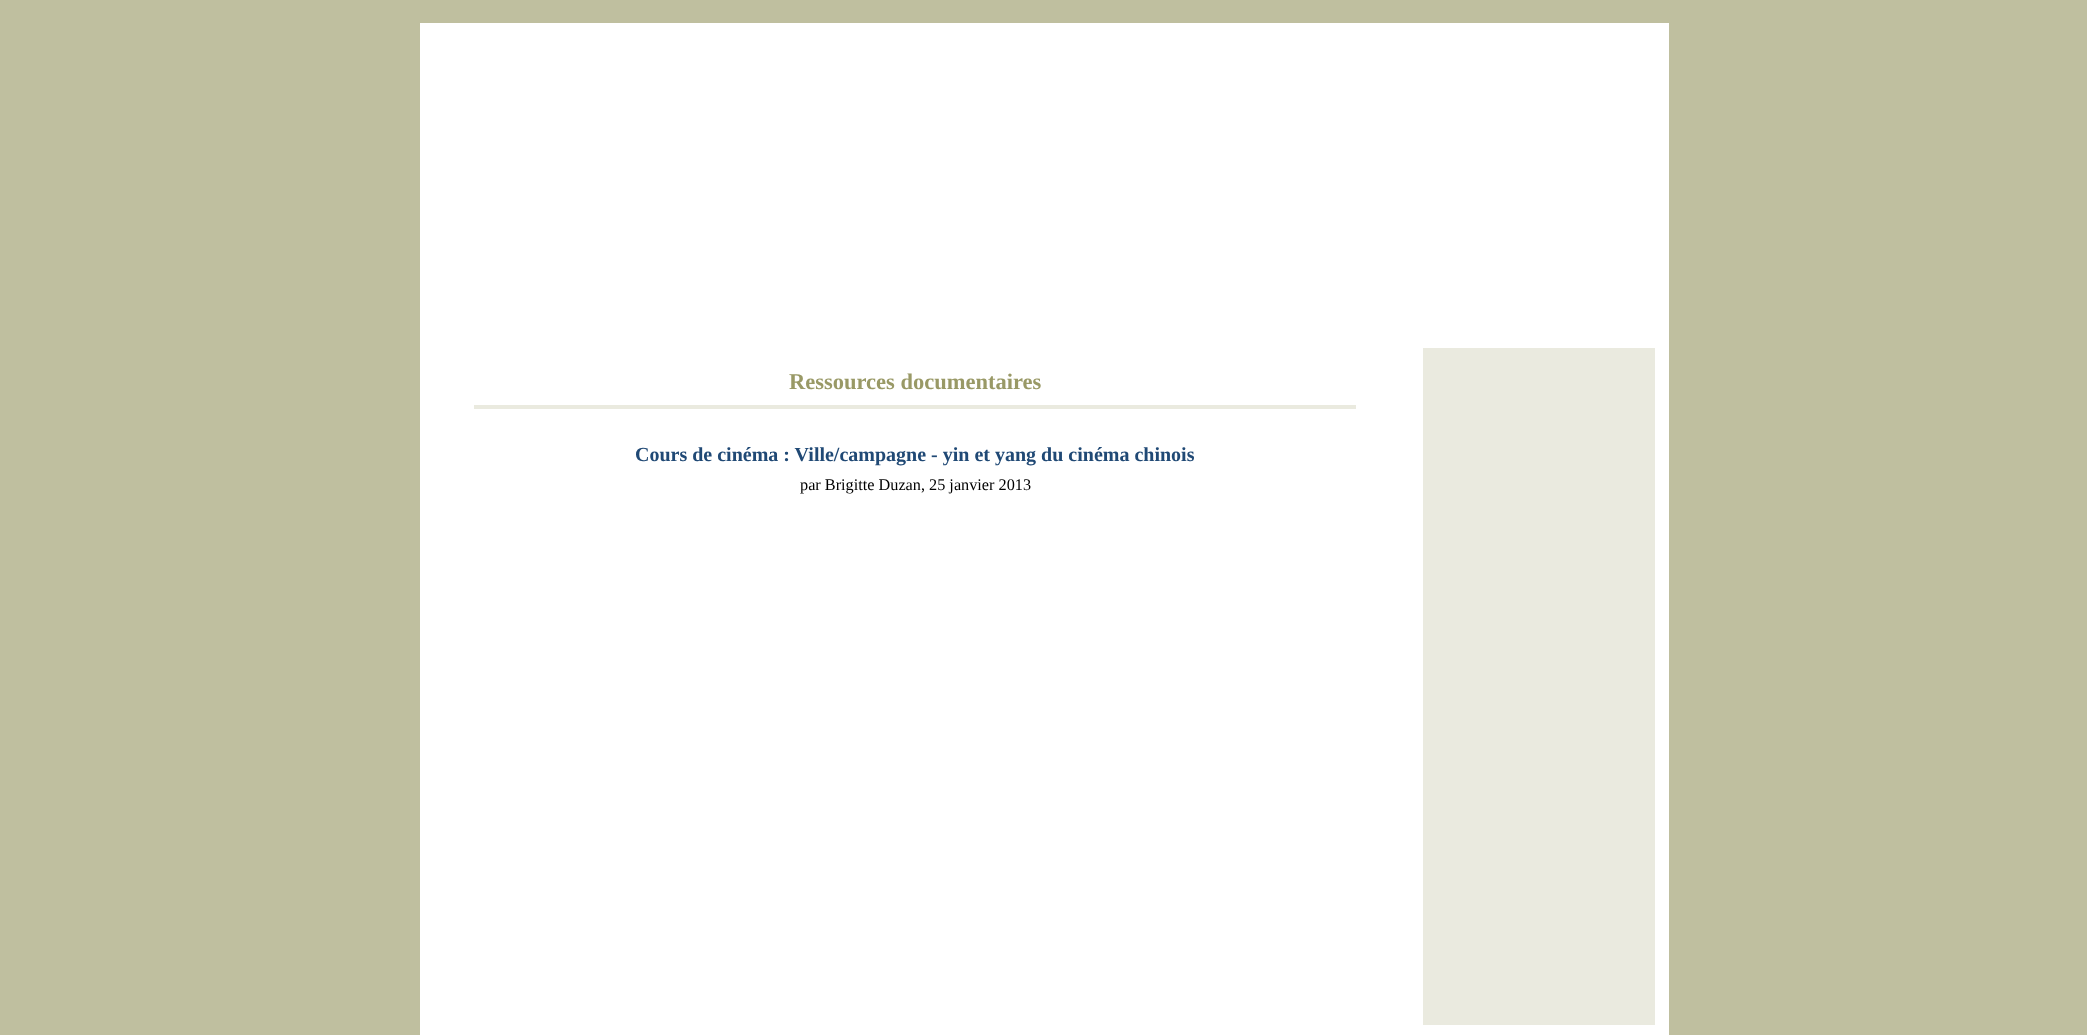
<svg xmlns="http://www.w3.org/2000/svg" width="2087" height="1035">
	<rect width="100%" height="100%" fill="#BFBF9F" />
	<rect x="420" y="23" width="1249" height="1012" fill="#FFFFFF" />
	<text x="789" y="389" font-family="Liberation Serif" font-size="22.5" font-weight="700" fill="#999966">Ressources documentaires</text>
	<rect x="474" y="405" width="882" height="4" fill="#EAEADF" />
	<text x="635" y="461" font-family="Liberation Serif" font-size="20" font-weight="700" fill="#204975">Cours de cinéma : Ville/campagne - yin et yang du cinéma chinois</text>
	<text x="800" y="490" font-family="Liberation Serif" font-size="16.25" fill="#000000">par Brigitte Duzan, 25 janvier 2013</text>
	<rect x="1423" y="348" width="232" height="677" fill="#EAEADF" />
</svg>
